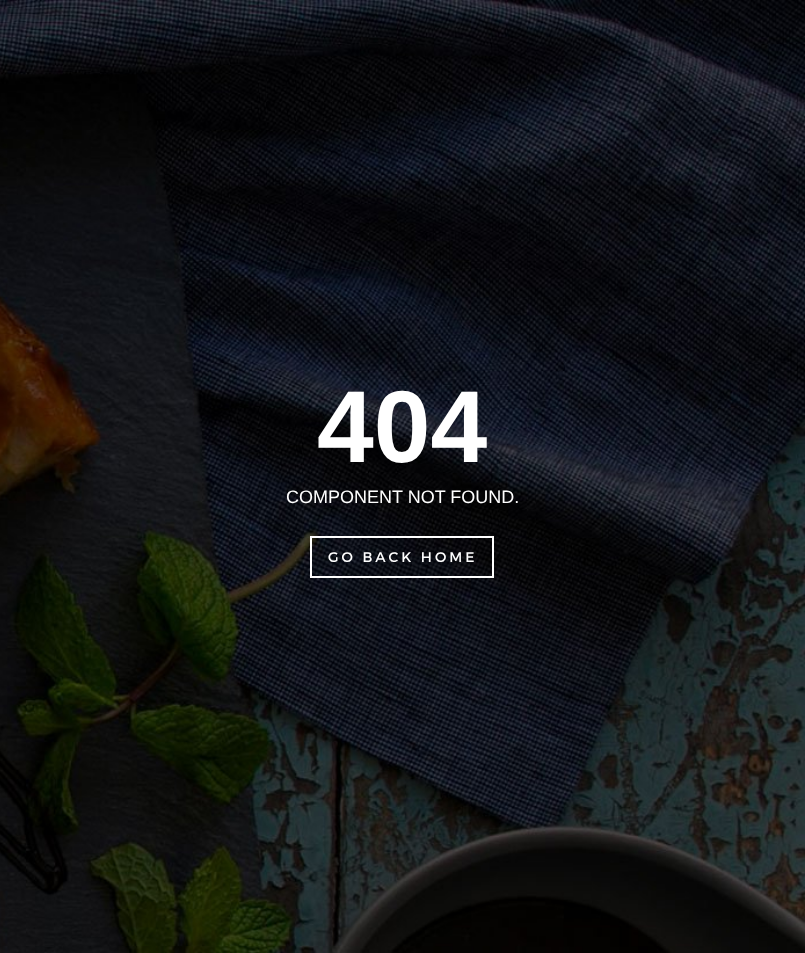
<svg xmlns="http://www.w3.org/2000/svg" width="805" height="953">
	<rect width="100%" height="100%" fill="#FFFFFF" />
	<image x="0" y="0" width="805" height="953" href="assets/img1.png" />
	<text x="317" y="462" font-family="Liberation Sans" font-size="102" font-weight="700" fill="#FFFFFF">404</text>
	<text x="286" y="503" font-family="Liberation Sans" font-size="18" fill="#FFFFFF">COMPONENT NOT FOUND.</text>
	<rect x="311" y="537" width="182" height="40" fill="none" stroke="#FFFFFF" stroke-width="2" />
	<text x="328" y="562" font-family="Montserrat" font-size="14" letter-spacing="3" fill="#FFFFFF">GO BACK HOME</text>
</svg>
